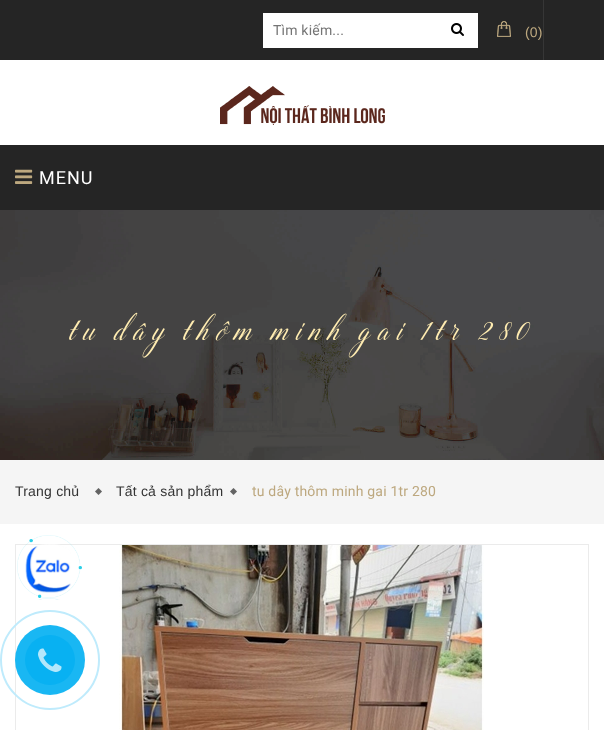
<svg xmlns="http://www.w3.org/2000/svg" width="604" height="730">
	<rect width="100%" height="100%" fill="#FFFFFF" />
	<rect x="0" y="0" width="604" height="60" fill="#252525" />
	<rect x="543" y="0" width="1" height="60" fill="#363636" />
	<rect x="263" y="13" width="215" height="35" fill="#FFFFFF" />
	<text x="273" y="35" font-family="Roboto" font-size="14" letter-spacing="0.2" fill="#757575">Tìm kiếm...</text>
	<image x="451" y="23" width="13" height="13" href="assets/img1.png" />
	<image x="497" y="21" width="14" height="16" href="assets/img2.png" />
	<text x="525" y="37" font-family="Liberation Sans" font-size="14" letter-spacing="0.2" fill="#BDA87F">(0)</text>
	<image x="220" y="86" width="165" height="39" href="assets/img3.png" />
	<rect x="0" y="145" width="604" height="65" fill="#252525" />
	<image x="15" y="169" width="18" height="15" href="assets/img4.png" />
	<text x="39" y="184" font-family="Roboto" font-size="18" letter-spacing="1" fill="#FFFFFF">MENU</text>
	<image x="0" y="210" width="604" height="250" href="assets/img5.png" />
	<image x="69" y="312" width="462" height="46" href="assets/img6.png" />
	<rect x="0" y="460" width="604" height="64" fill="#F5F5F5" />
	<text x="15" y="496" font-family="Liberation Sans" font-size="14" letter-spacing="0.2" fill="#333333">Trang chủ</text>
	<image x="95" y="488" width="7" height="7" href="assets/img7.png" />
	<text x="116" y="496" font-family="Liberation Sans" font-size="14" letter-spacing="0.2" fill="#333333">Tất cả sản phẩm</text>
	<image x="230" y="488" width="7" height="7" href="assets/img7.png" />
	<text x="252" y="496" font-family="Roboto" font-size="14" letter-spacing="0.2" fill="#BDA87F">tu dây thôm minh gai 1tr 280</text>
	<rect x="15.5" y="544.5" width="573" height="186" fill="none" stroke="#EBEBEB" />
	<image x="119" y="545" width="365" height="185" href="assets/img8.png" />
	<image x="17" y="535" width="65" height="65" href="assets/img9.png" />
	<image x="25" y="544" width="46" height="49" href="assets/img10.png" />
	<circle cx="50" cy="660" r="49" fill="none" stroke="#BFEBFC" stroke-width="2" />
	<circle cx="50" cy="660" r="35" fill="#00AFF2" fill-opacity="0.9" />
	<circle cx="50" cy="660" r="25" fill="#08B1F2" />
	<image x="38" y="648" width="24" height="24" href="assets/img11.png" />
</svg>
